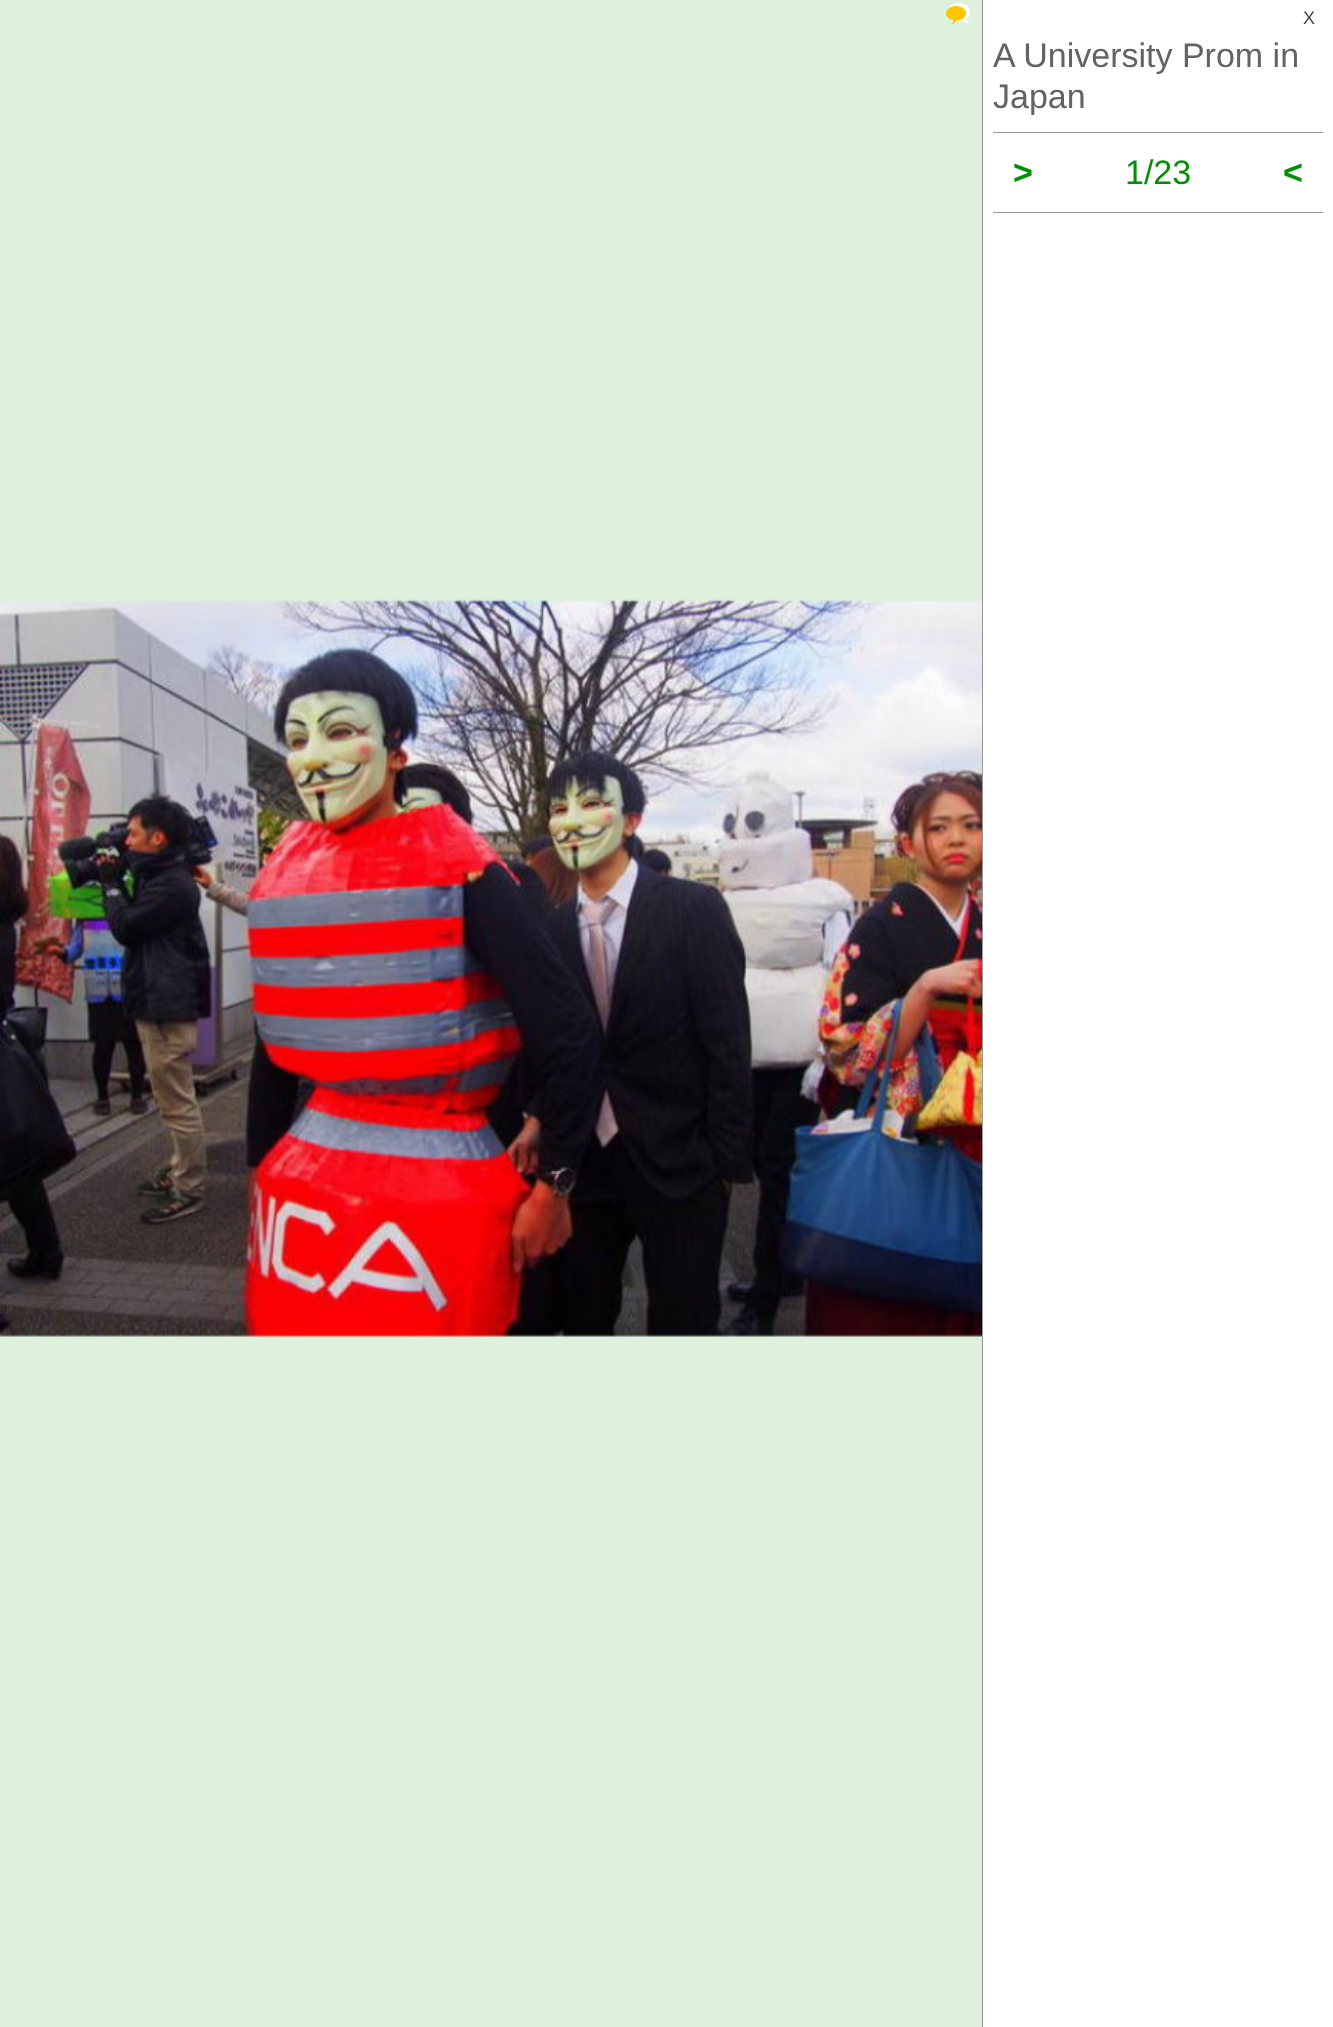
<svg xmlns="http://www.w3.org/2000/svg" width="1333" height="2027">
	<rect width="100%" height="100%" fill="#DDF1DD" />
	<image x="946" y="3" width="24" height="21" href="assets/img1.png" />
	<image x="0" y="599" width="982" height="738" href="assets/img2.png" />
	<rect x="983" y="0" width="350" height="2027" fill="#FFFFFF" />
	<rect x="982" y="0" width="1" height="2027" fill="#999999" />
	<text x="1303" y="24" font-family="Liberation Sans" font-size="18" fill="#444444">X</text>
	<g font-family="Liberation Sans" font-size="34" fill="#636363">
		<text x="993" y="67">A University Prom in</text>
		<text x="993" y="108">Japan</text>
	</g>
	<rect x="993" y="132" width="330" height="1" fill="#999999" />
	<rect x="993" y="212" width="330" height="1" fill="#999999" />
	<text x="1013" y="184" font-family="Liberation Sans" font-size="34" font-weight="700" fill="#009000">&gt;</text>
	<text x="1125" y="184" font-family="Liberation Sans" font-size="34" fill="#009000">1/23</text>
	<text x="1283" y="184" font-family="Liberation Sans" font-size="34" font-weight="700" fill="#009000">&lt;</text>
</svg>
